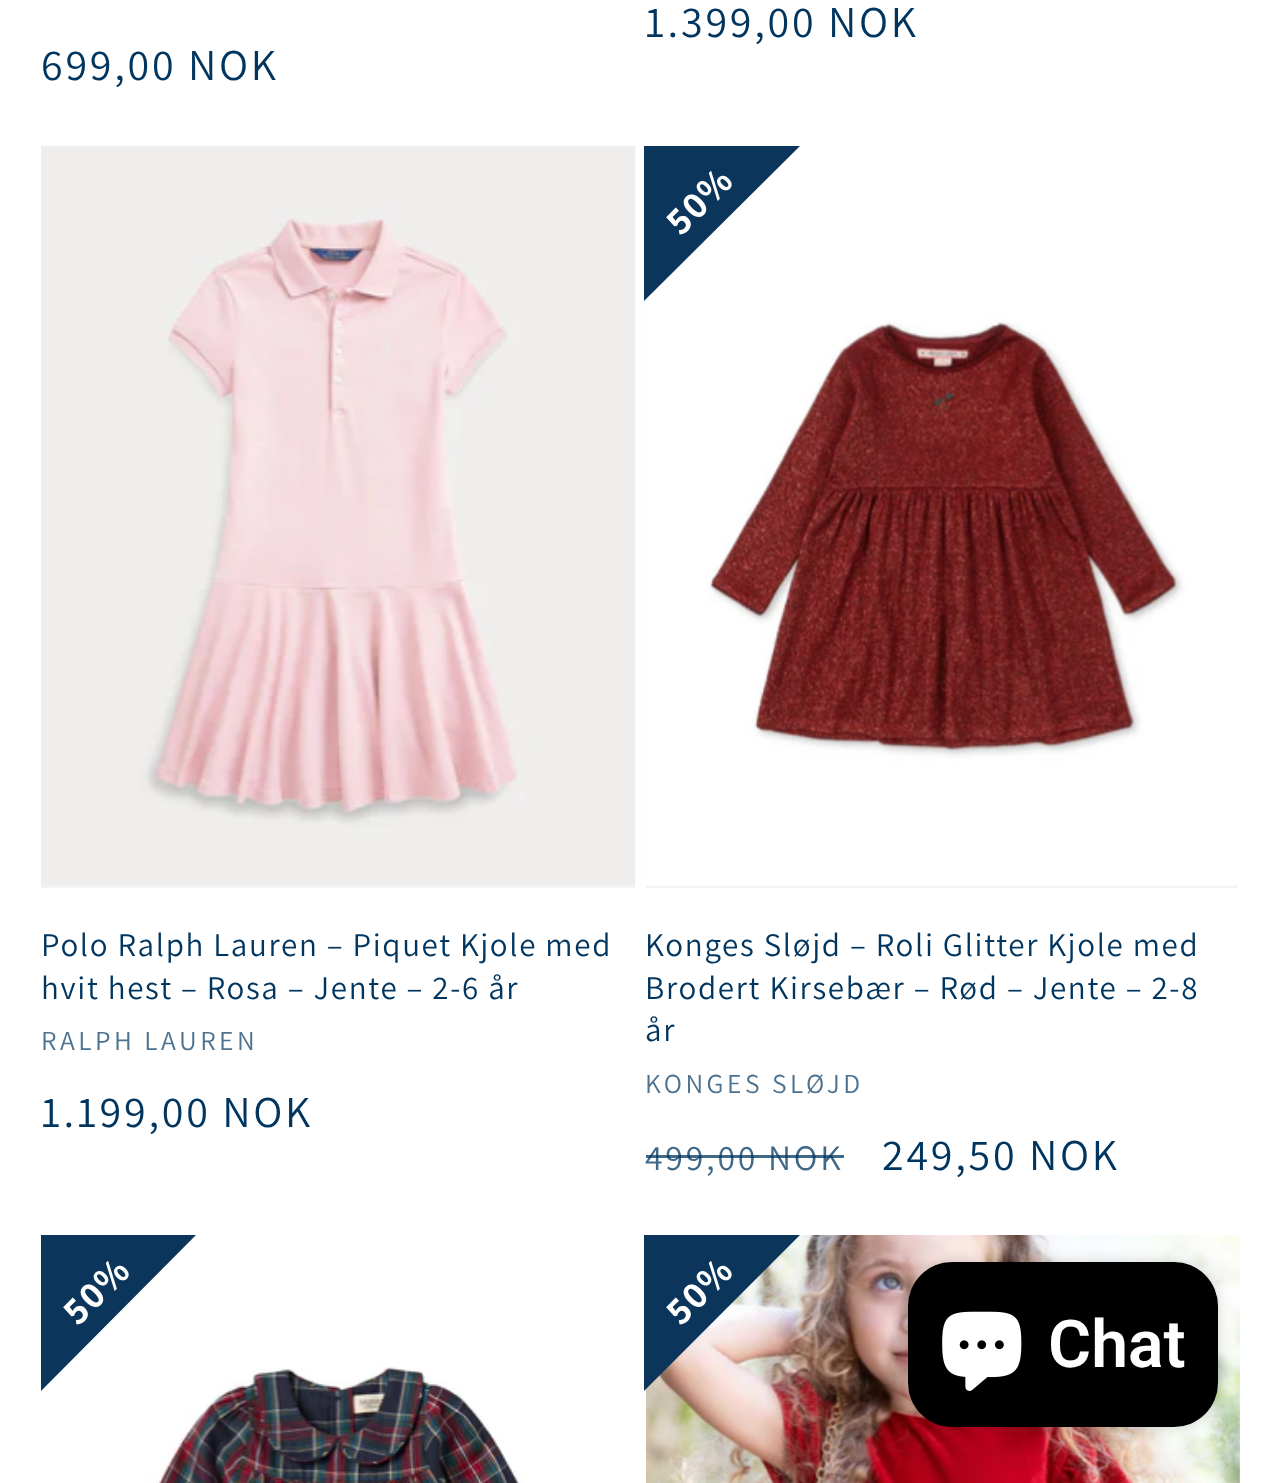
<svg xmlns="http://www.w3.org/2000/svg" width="1278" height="1483">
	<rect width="100%" height="100%" fill="#FFFFFF" />
	<g font-family="Assistant" font-size="44" letter-spacing="2.75" fill="#00355F">
		<text x="645" y="37">1.399,00 NOK</text>
		<text x="41" y="80">699,00 NOK</text>
	</g>
	<rect x="41" y="146" width="594" height="742" fill="#F3F3F3" />
	<image x="41" y="145" width="595" height="740" href="assets/img1.png" />
	<g font-family="Assistant" font-size="33" letter-spacing="1.65" fill="#00355F">
		<text x="41" y="956">Polo Ralph Lauren – Piquet Kjole med</text>
		<text x="41" y="999">hvit hest – Rosa – Jente – 2-6 år</text>
	</g>
	<text x="41" y="1050" font-family="Assistant" font-size="27.5" letter-spacing="3.5" fill="#4D728F">RALPH LAUREN</text>
	<text x="41" y="1127" font-family="Assistant" font-size="44" letter-spacing="2.75" fill="#00355F">1.199,00 NOK</text>
	<rect x="646" y="298" width="592" height="590" fill="#F3F3F3" />
	<image x="646" y="146" width="592" height="740" href="assets/img2.png" />
	<path d="M800 146L644 301V146Z" fill="#0B355B" />
	<text x="681" y="237" transform="rotate(-45 681 237)" font-family="Assistant" font-size="38.5" font-weight="700" letter-spacing="1.65" fill="#FFFFFF">50%</text>
	<g font-family="Assistant" font-size="33" letter-spacing="1.65" fill="#00355F">
		<text x="645" y="956">Konges Sløjd – Roli Glitter Kjole med</text>
		<text x="645" y="999">Brodert Kirsebær – Rød – Jente – 2-8</text>
		<text x="645" y="1041">år</text>
	</g>
	<text x="645" y="1093" font-family="Assistant" font-size="27.5" letter-spacing="3.5" fill="#4D728F">KONGES SLØJD</text>
	<text x="645" y="1170" font-family="Assistant" font-size="35.75" letter-spacing="2.75" fill="#406887">499,00 NOK</text>
	<rect x="646" y="1155" width="198" height="3" fill="#00355F" fill-opacity="0.75" />
	<text x="882" y="1170" font-family="Assistant" font-size="44" letter-spacing="2.75" fill="#00355F">249,50 NOK</text>
	<image x="41" y="1235" width="594" height="248" href="assets/img3.png" />
	<path d="M196 1235L41 1391V1235Z" fill="#0B355B" />
	<text x="78" y="1327" transform="rotate(-45 78 1327)" font-family="Assistant" font-size="38.5" font-weight="700" letter-spacing="1.65" fill="#FFFFFF">50%</text>
	<image x="646" y="1235" width="594" height="248" href="assets/img4.png" />
	<path d="M800 1235L644 1391V1235Z" fill="#0B355B" />
	<text x="681" y="1327" transform="rotate(-45 681 1327)" font-family="Assistant" font-size="38.5" font-weight="700" letter-spacing="1.65" fill="#FFFFFF">50%</text>
	<rect x="908" y="1262" width="310" height="165" rx="44" fill="#000000" fill-opacity="0.15" filter="blur(7px)" />
	<rect x="908" y="1262" width="310" height="165" rx="44" fill="#000000" />
	<image x="942" y="1311" width="80" height="80" href="assets/img5.png" />
	<text x="1048" y="1367" font-family="Roboto" font-size="66" font-weight="600" fill="#FFFFFF">Chat</text>
</svg>
